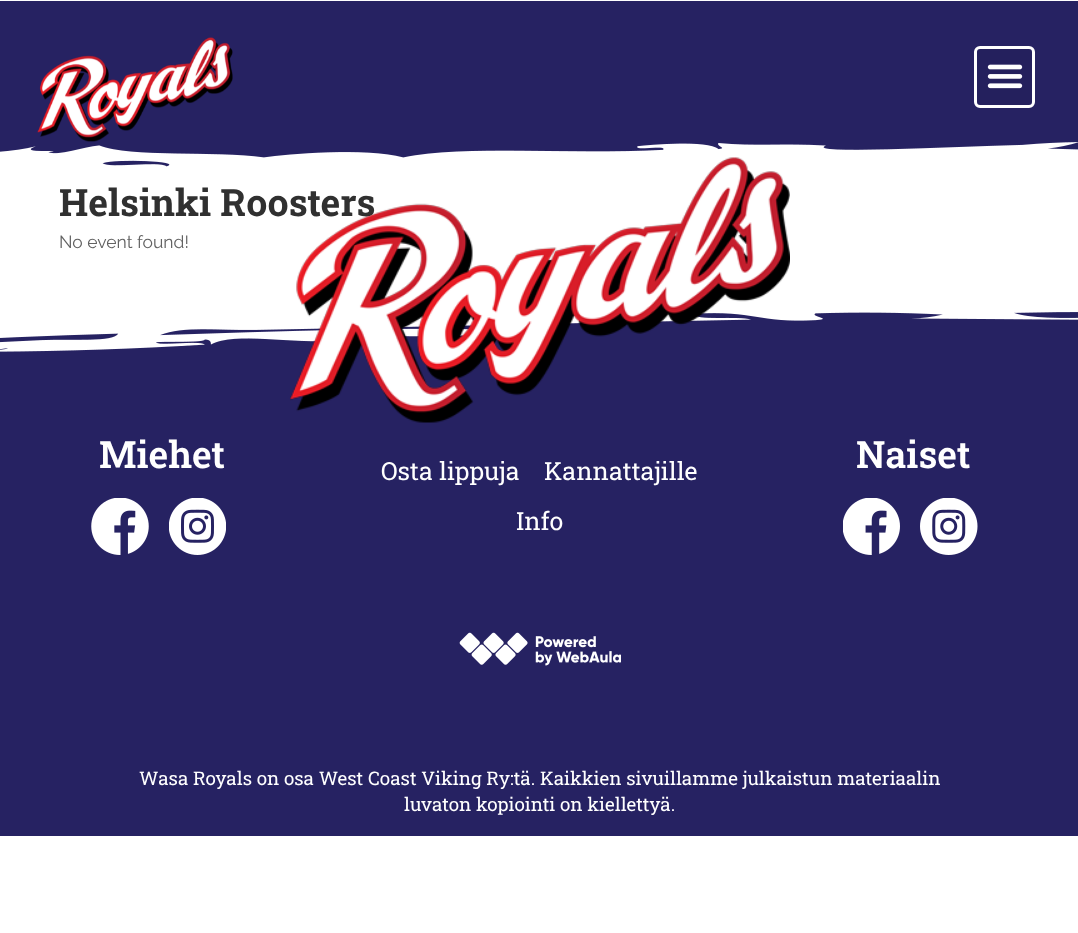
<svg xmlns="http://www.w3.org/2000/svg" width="1078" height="933">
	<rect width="100%" height="100%" fill="#FFFFFF" />
	<text x="59" y="216" font-family="Roboto Slab" font-size="37.5" font-weight="700" fill="#303030">Helsinki Roosters</text>
	<image x="0" y="312" width="1078" height="111" href="assets/img4.png" />
	<image x="290" y="157" width="500" height="266" href="assets/img5.png" />
	<image x="0" y="1" width="1078" height="166" href="assets/img1.png" />
	<image x="37" y="37" width="196" height="105" href="assets/img2.png" />
	<rect x="975.5" y="47.5" width="58" height="59" rx="4.5" fill="#24205D" stroke="#FFFFFF" stroke-width="3" />
	<image x="987" y="64" width="36" height="25" href="assets/img3.png" />
	<text x="59" y="248" font-family="Raleway" font-size="17.5" fill="#626262">No event found!</text>
	<rect x="0" y="423" width="1078" height="413" fill="#262262" />
	<text x="99" y="468" font-family="Roboto Slab" font-size="37.5" font-weight="600" fill="#FFFFFF">Miehet</text>
	<image x="91" y="498" width="58" height="57" href="assets/img6.png" />
	<image x="169" y="498" width="57" height="57" href="assets/img7.png" />
	<text x="856" y="468" font-family="Roboto Slab" font-size="37.5" font-weight="600" fill="#FFFFFF">Naiset</text>
	<image x="843" y="498" width="57" height="57" href="assets/img8.png" />
	<image x="920" y="498" width="58" height="57" href="assets/img9.png" />
	<g font-family="Roboto Slab" font-size="25" fill="#FFFFFF">
		<text x="381" y="480">Osta lippuja</text>
		<text x="544" y="480">Kannattajille</text>
		<text x="516" y="530">Info</text>
	</g>
	<image x="459" y="632" width="162" height="34" href="assets/img10.png" />
	<g font-family="Roboto Slab" font-size="18.75" fill="#FFFFFF">
		<text x="139" y="785">Wasa Royals on osa West Coast Viking Ry:tä. Kaikkien sivuillamme julkaistun materiaalin</text>
		<text x="404" y="811">luvaton kopiointi on kiellettyä.</text>
	</g>
</svg>
